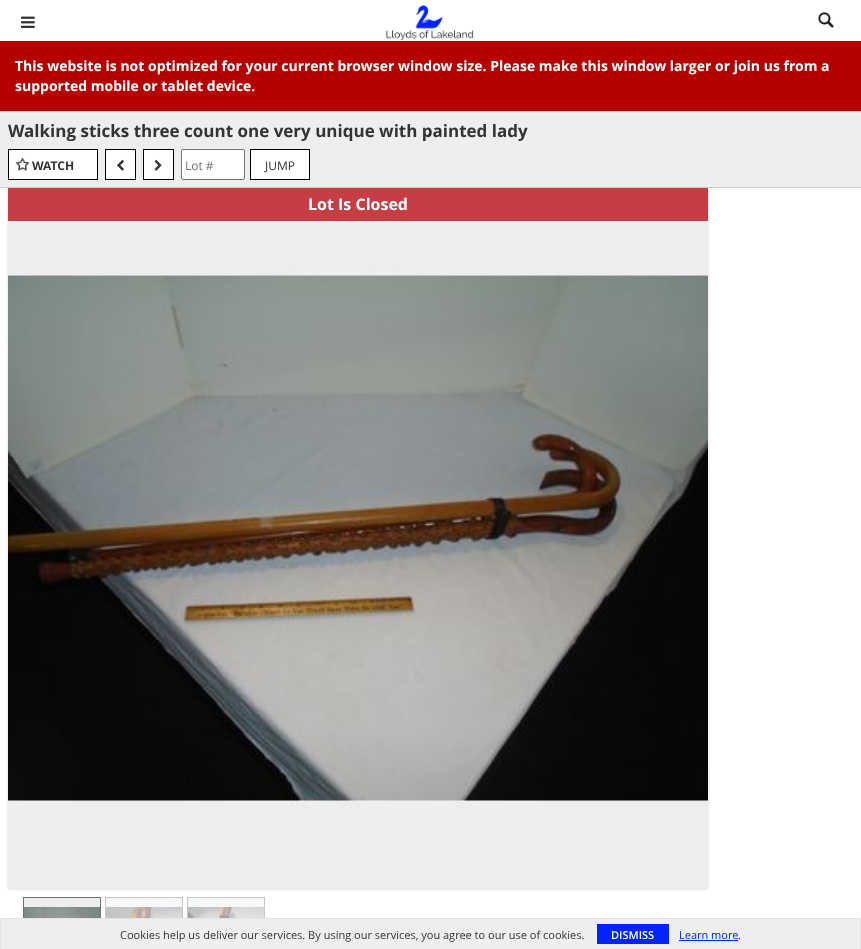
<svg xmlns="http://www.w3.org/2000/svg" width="861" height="949">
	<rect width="100%" height="100%" fill="#FFFFFF" />
	<image x="21" y="16" width="14" height="12" href="assets/img1.png" />
	<image x="386" y="5" width="88" height="35" href="assets/img2.png" />
	<image x="818" y="12" width="16" height="16" href="assets/img3.png" />
	<rect x="0" y="41" width="861" height="70" fill="#B50000" />
	<rect x="0" y="111" width="861" height="1" fill="#EBCCD1" />
	<g font-family="Open Sans" font-size="14" font-weight="700" fill="#FFFFFF">
		<text x="15" y="71">This website is not optimized for your current browser window size. Please make this window larger or join us from a</text>
		<text x="15" y="91">supported mobile or tablet device.</text>
	</g>
	<rect x="0" y="112" width="861" height="75" fill="#EEEEEE" />
	<rect x="0" y="187" width="861" height="1" fill="#CCCCCC" />
	<text x="8" y="137" font-family="Open Sans" font-size="17" font-weight="700" fill="#333333">Walking sticks three count one very unique with painted lady</text>
	<rect x="8.5" y="149.5" width="89" height="30" fill="#FFFFFF" stroke="#000000" />
	<image x="15" y="157" width="15" height="14" href="assets/img4.png" />
	<text x="32" y="170" font-family="Open Sans" font-size="12" font-weight="700" fill="#333333">WATCH</text>
	<rect x="105.5" y="149.5" width="30" height="30" fill="#FFFFFF" stroke="#000000" />
	<image x="117" y="159" width="7" height="12" href="assets/img5.png" />
	<rect x="143.5" y="149.5" width="30" height="30" fill="#FFFFFF" stroke="#000000" />
	<image x="154" y="159" width="8" height="12" href="assets/img6.png" />
	<rect x="181.5" y="149.5" width="63" height="30" rx="1.5" fill="#FFFFFF" stroke="#767676" />
	<text x="185" y="170" font-family="Open Sans" font-size="12" fill="#757575">Lot #</text>
	<rect x="250.5" y="149.5" width="59" height="30" fill="#FFFFFF" stroke="#000000" />
	<text x="265" y="170" font-family="Open Sans" font-size="12" fill="#333333">JUMP</text>
	<rect x="8" y="189" width="700" height="700" fill="#DAD9D7" filter="blur(1.5px)" />
	<rect x="8" y="188" width="700" height="33" fill="#C43E44" />
	<text x="308" y="210" font-family="Open Sans" font-size="16" font-weight="700" fill="#FFFFFF">Lot Is Closed</text>
	<image x="8" y="221" width="700" height="667" href="assets/img7.png" />
	<rect x="23.5" y="897.5" width="77" height="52" fill="none" stroke="#717171" />
	<rect x="105.5" y="897.5" width="77" height="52" fill="none" stroke="#C6C6C6" />
	<rect x="187.5" y="897.5" width="77" height="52" fill="none" stroke="#C6C6C6" />
	<image x="24" y="898" width="76" height="20" href="assets/img8.png" />
	<image x="106" y="898" width="76" height="20" href="assets/img9.png" />
	<image x="188" y="898" width="76" height="20" href="assets/img10.png" />
	<rect x="1" y="919" width="859" height="30" fill="#EEEEEE" />
	<rect x="0" y="918" width="861" height="1" fill="#E4E4E4" />
	<rect x="860" y="918" width="1" height="31" fill="#E4E4E4" />
	<rect x="0" y="918" width="1" height="31" fill="#E4E4E4" />
	<text x="120" y="939" font-family="Open Sans" font-size="11" fill="#333333">Cookies help us deliver our services. By using our services, you agree to our use of cookies.</text>
	<rect x="597" y="924" width="72" height="20" fill="#0024FF" />
	<text x="611" y="939" font-family="Open Sans" font-size="11" font-weight="600" fill="#FFFFFF">DISMISS</text>
	<text x="679" y="939" font-family="Open Sans" font-size="11" fill="#0024FF">Learn more</text>
	<rect x="679" y="940" width="59" height="1" fill="#0024FF" />
	<text x="738" y="939" font-family="Open Sans" font-size="11" fill="#333333">.</text>
</svg>
